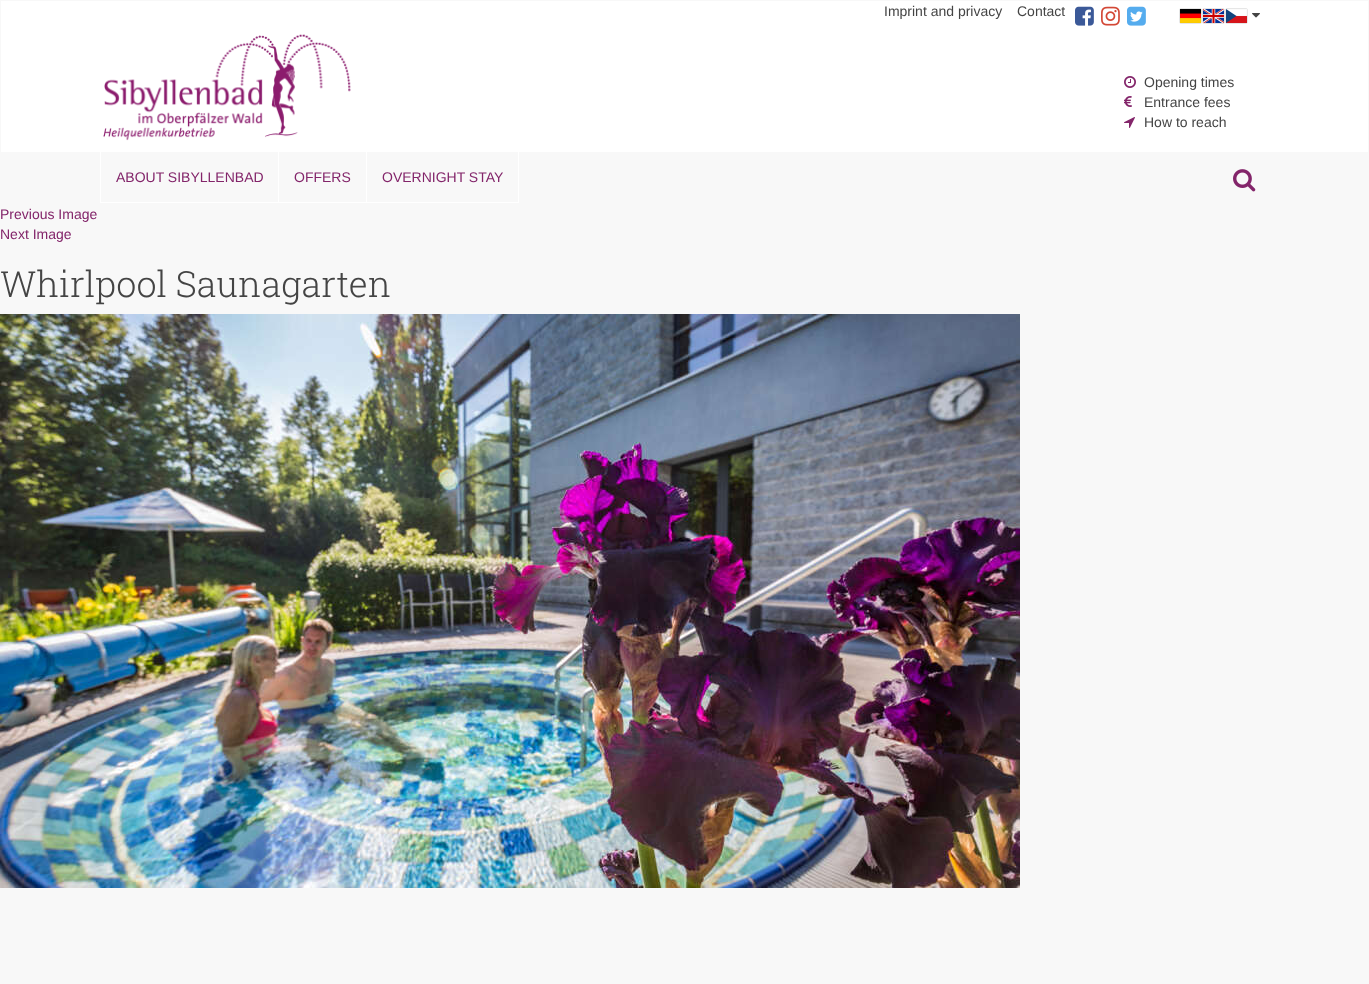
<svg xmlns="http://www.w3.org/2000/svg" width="1369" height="984">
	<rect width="100%" height="100%" fill="#F8F8F8" />
	<rect x="1" y="1" width="1367" height="151" fill="#FFFFFF" />
	<g font-family="Liberation Sans" font-size="14" fill="#444444">
		<text x="884" y="16">Imprint and privacy</text>
		<text x="1017" y="16">Contact</text>
	</g>
	<image x="1075" y="6" width="19" height="20" href="assets/img1.png" />
	<image x="1101" y="6" width="19" height="20" href="assets/img2.png" />
	<image x="1127" y="6" width="19" height="20" href="assets/img3.png" />
	<image x="1179" y="8" width="69" height="16" href="assets/img4.png" />
	<image x="1252" y="13" width="8" height="5" href="assets/img5.png" />
	<image x="103" y="34" width="248" height="107" href="assets/img6.png" />
	<image x="1124" y="76" width="12" height="12" href="assets/img7.png" />
	<text x="1144" y="87" font-family="Liberation Sans" font-size="14" fill="#444444">Opening times</text>
	<image x="1124" y="96" width="8" height="11" href="assets/img8.png" />
	<text x="1144" y="107" font-family="Liberation Sans" font-size="14" fill="#444444">Entrance fees</text>
	<image x="1124" y="117" width="11" height="11" href="assets/img9.png" />
	<text x="1144" y="127" font-family="Liberation Sans" font-size="14" fill="#444444">How to reach</text>
	<rect x="278" y="152" width="1" height="51" fill="#FFFFFF" />
	<rect x="100" y="202" width="179" height="1" fill="#FFFFFF" />
	<rect x="100" y="152" width="1" height="51" fill="#FFFFFF" />
	<text x="116" y="182" font-family="Liberation Sans" font-size="14" fill="#83256A">ABOUT SIBYLLENBAD</text>
	<rect x="366" y="152" width="1" height="51" fill="#FFFFFF" />
	<rect x="279" y="202" width="88" height="1" fill="#FFFFFF" />
	<text x="294" y="182" font-family="Liberation Sans" font-size="14" fill="#83256A">OFFERS</text>
	<rect x="518" y="152" width="1" height="51" fill="#FFFFFF" />
	<rect x="367" y="202" width="152" height="1" fill="#FFFFFF" />
	<text x="382" y="182" font-family="Liberation Sans" font-size="14" fill="#83256A">OVERNIGHT STAY</text>
	<image x="1233" y="169" width="23" height="23" href="assets/img10.png" />
	<g font-family="Liberation Sans" font-size="14" fill="#83256A">
		<text x="0" y="219">Previous Image</text>
		<text x="0" y="239">Next Image</text>
	</g>
	<text x="0" y="297" font-family="Roboto Slab" font-size="36" font-weight="300" fill="#444444">Whirlpool Saunagarten</text>
	<image x="0" y="314" width="1020" height="574" href="assets/img11.png" />
</svg>
